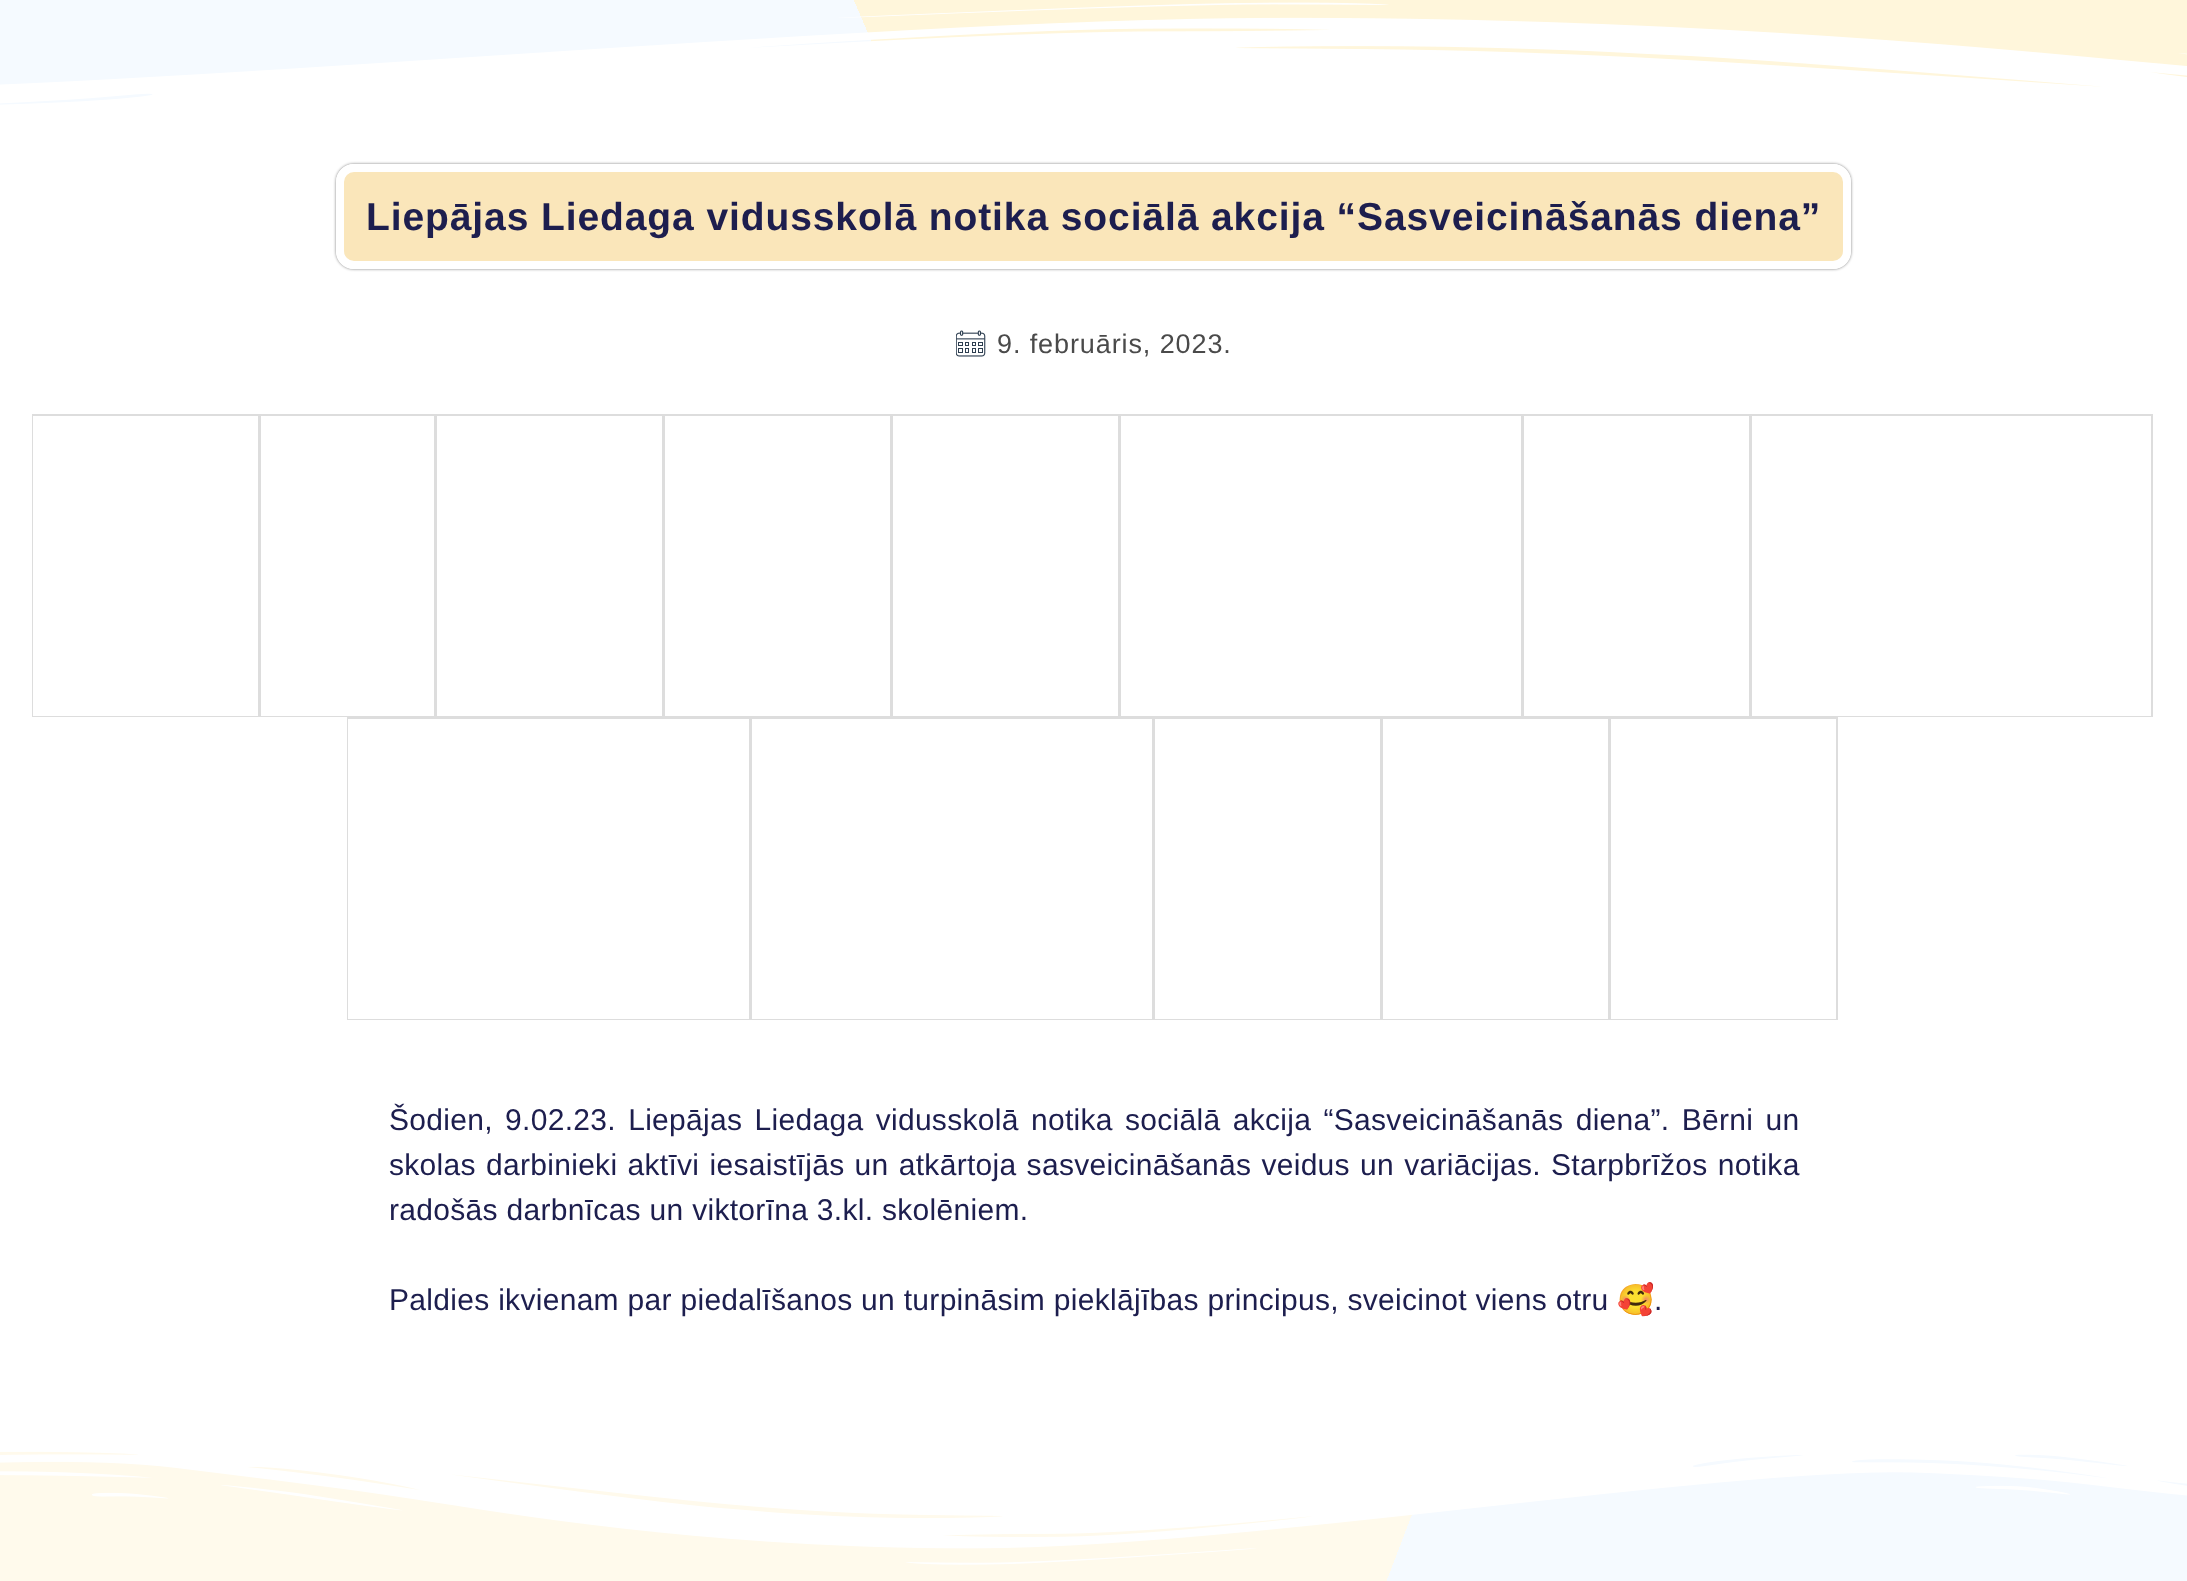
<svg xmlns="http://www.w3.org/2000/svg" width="2187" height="1581">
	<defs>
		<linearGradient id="g1" gradientUnits="userSpaceOnUse" x1="2078" y1="-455" x2="109" y2="380"><stop offset="0.61" stop-color="#FFF6DB" /><stop offset="0.61" stop-color="#F5FAFF" /></linearGradient>
		<clipPath id="clip1"><path d="M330 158H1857V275H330ZM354 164H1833C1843 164 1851 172 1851 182V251C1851 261 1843 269 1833 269H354C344 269 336 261 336 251V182C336 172 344 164 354 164Z" clip-rule="evenodd" /></clipPath>
		<linearGradient id="g2" gradientUnits="userSpaceOnUse" x1="28" y1="1363" x2="2159" y2="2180"><stop offset="0.59" stop-color="#FFFAEC" /><stop offset="0.59" stop-color="#F5FAFF" /></linearGradient>
	</defs>
	<rect width="100%" height="100%" fill="#FFFFFF" />
	<rect x="0" y="0" width="2187" height="105" fill="url(#g1)" />
	<image x="0" y="2" width="2187" height="121" href="assets/img1.png" />
	<g clip-path="url(#clip1)">
		<rect x="336" y="164" width="1515" height="105" rx="18" fill="#000000" fill-opacity="0.5" filter="blur(1.5px)" />
	</g>
	<rect x="340" y="168" width="1507" height="97" rx="14" fill="#F3BF4E" fill-opacity="0.39" stroke="#FFFFFF" stroke-width="8" />
	<text x="366" y="230" font-family="Liberation Sans" font-size="39" font-weight="700" letter-spacing="0.9" fill="#1D1E4E">Liepājas Liedaga vidusskolā notika sociālā akcija “Sasveicināšanās diena”</text>
	<image x="956" y="330" width="30" height="27" href="assets/img2.png" />
	<text x="997" y="353" font-family="Liberation Sans" font-size="27" letter-spacing="0.9" fill="#4A4A4A">9. februāris, 2023.</text>
	<rect x="33" y="415" width="226" height="301" fill="none" stroke="#DDDDDD" stroke-width="2" />
	<rect x="33" y="416" width="225" height="300" fill="#FFFFFF" />
	<rect x="261" y="415" width="173" height="301" fill="none" stroke="#DDDDDD" stroke-width="2" />
	<rect x="261" y="416" width="173" height="300" fill="#FFFFFF" />
	<rect x="436" y="415" width="226" height="301" fill="none" stroke="#DDDDDD" stroke-width="2" />
	<rect x="437" y="416" width="225" height="300" fill="#FFFFFF" />
	<rect x="664" y="415" width="226" height="301" fill="none" stroke="#DDDDDD" stroke-width="2" />
	<rect x="665" y="416" width="225" height="300" fill="#FFFFFF" />
	<rect x="892" y="415" width="226" height="301" fill="none" stroke="#DDDDDD" stroke-width="2" />
	<rect x="893" y="416" width="225" height="300" fill="#FFFFFF" />
	<rect x="1120" y="415" width="402" height="301" fill="none" stroke="#DDDDDD" stroke-width="2" />
	<rect x="1121" y="715" width="400" height="1" fill="#FFFFFF" />
	<rect x="1524" y="415" width="226" height="301" fill="none" stroke="#DDDDDD" stroke-width="2" />
	<rect x="1524" y="416" width="225" height="300" fill="#FFFFFF" />
	<rect x="1752" y="415" width="400" height="301" fill="none" stroke="#DDDDDD" stroke-width="2" />
	<rect x="1752" y="416" width="399" height="300" fill="#FFFFFF" />
	<rect x="348" y="718" width="401" height="301" fill="none" stroke="#DDDDDD" stroke-width="2" />
	<rect x="348" y="719" width="401" height="300" fill="#FFFFFF" />
	<rect x="751" y="718" width="402" height="301" fill="none" stroke="#DDDDDD" stroke-width="2" />
	<rect x="752" y="1018" width="400" height="1" fill="#FFFFFF" />
	<rect x="1155" y="718" width="226" height="301" fill="none" stroke="#DDDDDD" stroke-width="2" />
	<rect x="1155" y="719" width="225" height="300" fill="#FFFFFF" />
	<rect x="1383" y="718" width="226" height="301" fill="none" stroke="#DDDDDD" stroke-width="2" />
	<rect x="1383" y="719" width="225" height="300" fill="#FFFFFF" />
	<rect x="1611" y="718" width="226" height="301" fill="none" stroke="#DDDDDD" stroke-width="2" />
	<rect x="1611" y="719" width="225" height="300" fill="#FFFFFF" />
	<g font-family="Liberation Sans" font-size="30" letter-spacing="0.3" fill="#1D1E4E">
		<text x="389" y="1130" word-spacing="3.6">Šodien, 9.02.23. Liepājas Liedaga vidusskolā notika sociālā akcija “Sasveicināšanās diena”. Bērni un</text>
		<text x="389" y="1175" word-spacing="1.5">skolas darbinieki aktīvi iesaistījās un atkārtoja sasveicināšanās veidus un variācijas. Starpbrīžos notika</text>
		<text x="389" y="1220">radošās darbnīcas un viktorīna 3.kl. skolēniem.</text>
		<text x="389" y="1310">Paldies ikvienam par piedalīšanos un turpināsim pieklājības principus, sveicinot viens otru</text>
	</g>
	<text x="1617" y="1310" font-family="Noto Color Emoji" font-size="30" letter-spacing="0.3" fill="#1D1E4E">🥰</text>
	<text x="1654" y="1310" font-family="Liberation Sans" font-size="30" letter-spacing="0.3" fill="#1D1E4E">.</text>
	<rect x="0" y="1451" width="2187" height="130" fill="url(#g2)" />
	<image x="0" y="1434" width="2187" height="131" href="assets/img3.png" />
</svg>
